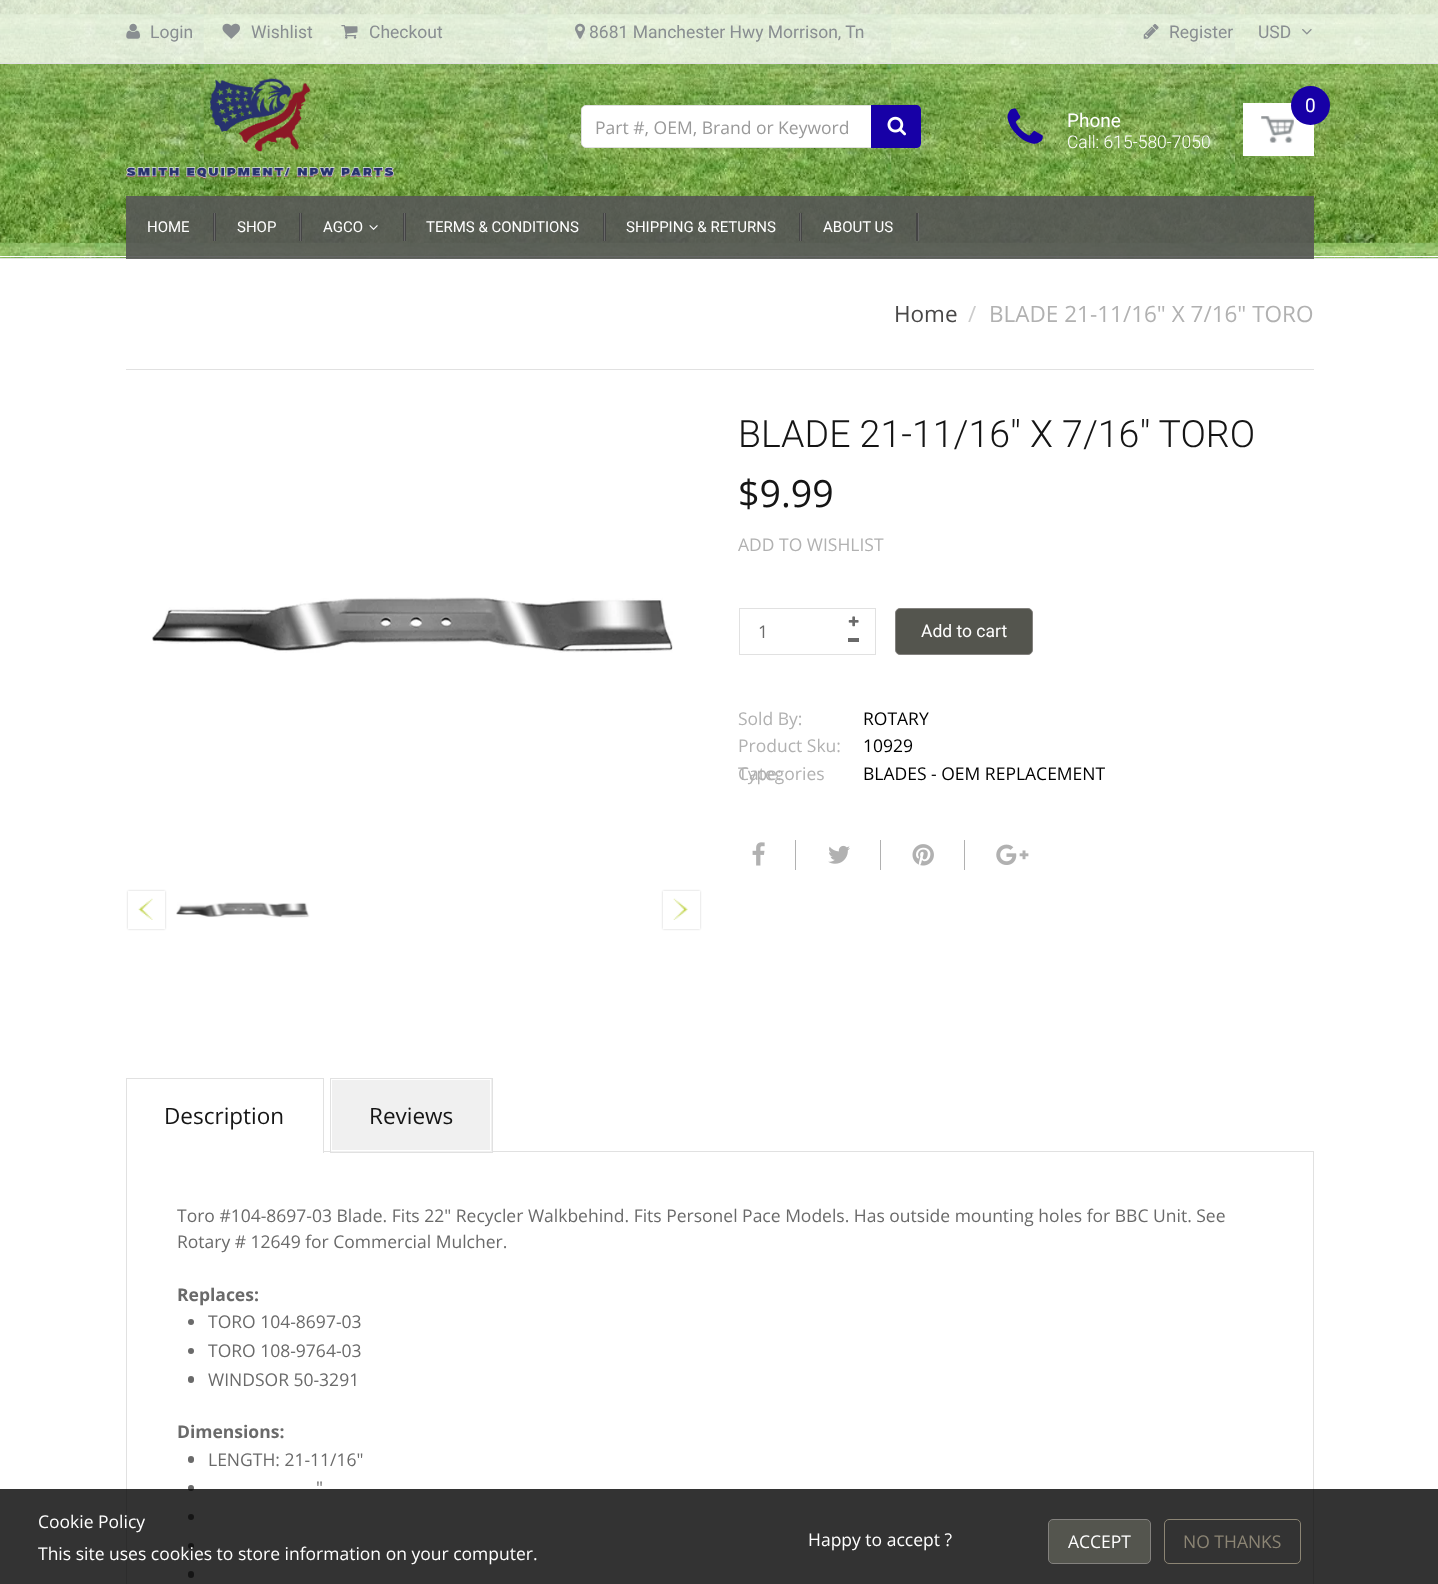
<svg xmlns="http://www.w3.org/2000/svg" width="1438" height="1584">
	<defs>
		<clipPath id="clip1"><path d="M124 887H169V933H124ZM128 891H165V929H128Z" clip-rule="evenodd" /></clipPath>
		<clipPath id="clip2"><path d="M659 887H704V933H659ZM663 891H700V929H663Z" clip-rule="evenodd" /></clipPath>
	</defs>
	<rect width="100%" height="100%" fill="#FFFFFF" />
	<image x="0" y="0" width="1438" height="258" href="assets/img1.png" />
	<rect x="0" y="258" width="1438" height="1" fill="#E1E1E1" />
	<rect x="0" y="0" width="1438" height="63" fill="#FFFFFF" fill-opacity="0.75" />
	<rect x="0" y="63" width="1438" height="1" fill="#E1E1E1" />
	<image x="126" y="23" width="14" height="16" href="assets/img2.png" />
	<text x="150" y="38" font-family="Roboto" font-size="17.5" fill="#898E91">Login</text>
	<image x="222" y="23" width="18" height="16" href="assets/img3.png" />
	<text x="251" y="38" font-family="Roboto" font-size="17.5" fill="#898E91">Wishlist</text>
	<image x="341" y="25" width="17" height="14" href="assets/img4.png" />
	<text x="369" y="38" font-family="Roboto" font-size="17.5" fill="#898E91">Checkout</text>
	<image x="575" y="23" width="10" height="16" href="assets/img5.png" />
	<text x="589" y="38" font-family="Roboto" font-size="17.5" fill="#898E91">8681 Manchester Hwy Morrison, Tn</text>
	<image x="1143" y="24" width="16" height="15" href="assets/img6.png" />
	<g font-family="Roboto" font-size="17.5" fill="#898E91">
		<text x="1169" y="38">Register</text>
		<text x="1258" y="38">USD</text>
	</g>
	<image x="1302" y="29" width="10" height="6" href="assets/img7.png" />
	<rect x="0" y="256" width="1438" height="1" fill="#FFFFFF" />
	<image x="126" y="78" width="268" height="101" href="assets/img8.png" />
	<rect x="1243" y="103" width="71" height="53" fill="#FFFFFF" />
	<image x="1261" y="116" width="33" height="27" href="assets/img9.png" />
	<circle cx="1310.5" cy="105.5" r="19.5" fill="#1700A6" />
	<text x="1305" y="112" font-family="Roboto" font-size="19" fill="#FFFFFF">0</text>
	<rect x="581.5" y="105.5" width="339" height="42" rx="4.5" fill="#FFFFFF" stroke="#E1E1E1" />
	<text x="595" y="134" font-family="Open Sans" font-size="17.5" fill="#999999">Part #, OEM, Brand or Keyword</text>
	<path d="M871 105H916C919 105 921 107 921 110V143C921 146 919 148 916 148H871Z" fill="#1700A6" />
	<image x="887" y="116" width="19" height="20" href="assets/img10.png" />
	<image x="1007" y="108" width="36" height="36" href="assets/img11.png" />
	<text x="1067" y="127" font-family="Roboto" font-size="19" fill="#FFFFFF">Phone</text>
	<text x="1067" y="148" font-family="Roboto" font-size="17.5" font-weight="300" fill="#FFFFFF">Call: 615-580-7050</text>
	<rect x="126" y="196" width="1188" height="63" fill="#565656" fill-opacity="0.9" />
	<text x="147" y="232" font-family="Roboto" font-size="15" fill="#FFFFFF">HOME</text>
	<rect x="213" y="213" width="3" height="28" fill="#454545" />
	<rect x="214" y="213" width="1" height="28" fill="#676767" />
	<text x="237" y="232" font-family="Roboto" font-size="15" fill="#FFFFFF">SHOP</text>
	<rect x="299" y="213" width="3" height="28" fill="#454545" />
	<rect x="300" y="213" width="1" height="28" fill="#676767" />
	<text x="323" y="232" font-family="Roboto" font-size="15" fill="#FFFFFF">AGCO</text>
	<image x="369" y="225" width="9" height="5" href="assets/img12.png" />
	<rect x="403" y="213" width="3" height="28" fill="#454545" />
	<rect x="404" y="213" width="1" height="28" fill="#676767" />
	<text x="426" y="232" font-family="Roboto" font-size="15" fill="#FFFFFF">TERMS &amp; CONDITIONS</text>
	<rect x="603" y="213" width="3" height="28" fill="#454545" />
	<rect x="604" y="213" width="1" height="28" fill="#676767" />
	<text x="626" y="232" font-family="Roboto" font-size="15" fill="#FFFFFF">SHIPPING &amp; RETURNS</text>
	<rect x="799" y="213" width="3" height="28" fill="#454545" />
	<rect x="800" y="213" width="1" height="28" fill="#676767" />
	<text x="823" y="232" font-family="Roboto" font-size="15" fill="#FFFFFF">ABOUT US</text>
	<rect x="916" y="213" width="2" height="28" fill="#454545" />
	<rect x="918" y="213" width="1" height="28" fill="#676767" />
	<text x="894" y="322" font-family="Open Sans" font-size="22.5" fill="#484747">Home</text>
	<text x="968" y="322" font-family="Open Sans" font-size="22.5" fill="#CCCCCC">/</text>
	<text x="989" y="322" font-family="Open Sans" font-size="22.5" fill="#B1B1B1">BLADE 21-11/16" X 7/16" TORO</text>
	<rect x="126" y="369" width="1188" height="1" fill="#E1E1E1" />
	<image x="152" y="597" width="521" height="56" href="assets/img13.png" />
	<g clip-path="url(#clip1)">
		<rect x="128" y="891" width="37" height="38" fill="#000000" fill-opacity="0.2" filter="blur(1px)" />
	</g>
	<image x="138" y="898" width="15" height="22" href="assets/img14.png" />
	<g clip-path="url(#clip2)">
		<rect x="663" y="891" width="37" height="38" fill="#000000" fill-opacity="0.2" filter="blur(1px)" />
	</g>
	<image x="673" y="898" width="15" height="22" href="assets/img15.png" />
	<image x="176" y="902" width="134" height="16" href="assets/img16.png" />
	<text x="738" y="447" font-family="Roboto" font-size="37.5" font-weight="300" fill="#151515">BLADE 21-11/16" X 7/16" TORO</text>
	<text x="738" y="507" font-family="Open Sans" font-size="37.5" fill="#151515">$9.99</text>
	<text x="738" y="551" font-family="Open Sans" font-size="17.5" fill="#B1B1B1">ADD TO WISHLIST</text>
	<rect x="739.5" y="608.5" width="136" height="46" fill="none" stroke="#E1E1E1" />
	<text x="758" y="638" font-family="Open Sans" font-size="17.5" fill="#6A6A6A">1</text>
	<image x="848" y="616" width="11" height="11" href="assets/img17.png" />
	<rect x="848" y="638" width="11" height="4" fill="#6A6A6A" />
	<rect x="895.5" y="608.5" width="137" height="46" rx="4.5" fill="#54554E" stroke="#83817E" />
	<text x="921" y="637" font-family="Roboto" font-size="17.5" fill="#FFFFFF">Add to cart</text>
	<text x="738" y="725" font-family="Open Sans" font-size="17.5" fill="#B1B1B1">Sold By:</text>
	<text x="863" y="725" font-family="Open Sans" font-size="17.5" fill="#000000">ROTARY</text>
	<text x="738" y="752" font-family="Open Sans" font-size="17.5" fill="#B1B1B1">Product Sku:</text>
	<text x="863" y="752" font-family="Open Sans" font-size="17.5" fill="#000000">10929</text>
	<g font-family="Open Sans" font-size="17.5" fill="#B1B1B1">
		<text x="738" y="780">Categories</text>
		<text x="738" y="780">Type:</text>
	</g>
	<text x="863" y="780" font-family="Open Sans" font-size="17.5" fill="#000000">BLADES - OEM REPLACEMENT</text>
	<image x="752" y="842" width="13" height="24" href="assets/img18.png" />
	<rect x="795" y="840" width="1" height="30" fill="#B1B1B1" />
	<image x="828" y="845" width="22" height="19" href="assets/img19.png" />
	<rect x="880" y="840" width="1" height="30" fill="#B1B1B1" />
	<image x="912" y="844" width="22" height="22" href="assets/img20.png" />
	<rect x="964" y="840" width="1" height="30" fill="#B1B1B1" />
	<image x="996" y="844" width="33" height="21" href="assets/img21.png" />
	<rect x="126.5" y="1151.5" width="1187" height="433" fill="none" stroke="#E1E1E1" />
	<rect x="127" y="1151" width="196" height="1" fill="#FFFFFF" />
	<rect x="126" y="1078" width="198" height="1" fill="#E1E1E1" />
	<rect x="323" y="1078" width="1" height="75" fill="#E1E1E1" />
	<rect x="126" y="1078" width="1" height="75" fill="#E1E1E1" />
	<text x="164" y="1124" font-family="Open Sans" font-size="22.5" fill="#151515">Description</text>
	<rect x="331" y="1079" width="161" height="73" fill="#F0F0F0" />
	<rect x="331.5" y="1079.5" width="159" height="71" fill="none" stroke="#FFFFFF" />
	<rect x="330.5" y="1078.5" width="162" height="74" fill="none" stroke="#E1E1E1" />
	<text x="369" y="1124" font-family="Open Sans" font-size="22.5" fill="#151515">Reviews</text>
	<g font-family="Open Sans" font-size="17.5" fill="#6A6A6A">
		<text x="177" y="1222">Toro #104-8697-03 Blade. Fits 22" Recycler Walkbehind. Fits Personel Pace Models. Has outside mounting holes for BBC Unit. See</text>
		<text x="177" y="1248">Rotary # 12649 for Commercial Mulcher.</text>
	</g>
	<text x="177" y="1301" font-family="Open Sans" font-size="17.5" font-weight="700" fill="#6A6A6A">Replaces:</text>
	<circle cx="191" cy="1322" r="3" fill="#6A6A6A" />
	<text x="208" y="1328" font-family="Open Sans" font-size="17.5" fill="#6A6A6A">TORO 104-8697-03</text>
	<circle cx="191" cy="1351" r="3" fill="#6A6A6A" />
	<text x="208" y="1357" font-family="Open Sans" font-size="17.5" fill="#6A6A6A">TORO 108-9764-03</text>
	<rect x="188" y="1376" width="6" height="7" rx="3" fill="#6A6A6A" />
	<text x="208" y="1386" font-family="Open Sans" font-size="17.5" fill="#6A6A6A">WINDSOR 50-3291</text>
	<text x="177" y="1438" font-family="Open Sans" font-size="17.5" font-weight="700" fill="#6A6A6A">Dimensions:</text>
	<rect x="188" y="1456" width="6" height="7" rx="3" fill="#6A6A6A" />
	<g font-family="Open Sans" font-size="17.5" fill="#6A6A6A">
		<text x="208" y="1466">LENGTH: 21-11/16"</text>
		<text x="316" y="1494">"</text>
	</g>
	<circle cx="191" cy="1488" r="3" fill="#6A6A6A" />
	<circle cx="191" cy="1517" r="3" fill="#6A6A6A" />
	<circle cx="191" cy="1546" r="3" fill="#6A6A6A" />
	<rect x="188" y="1571" width="6" height="7" rx="3" fill="#6A6A6A" />
	<rect x="0" y="1489" width="1438" height="95" fill="#000000" fill-opacity="0.8" />
	<g font-family="Open Sans" font-size="17.5" fill="#FFFFFF">
		<text x="38" y="1528">Cookie Policy</text>
		<text x="808" y="1546">Happy to accept ?</text>
	</g>
	<rect x="1048.5" y="1519.5" width="102" height="44" rx="4.5" fill="#54554E" stroke="#83817E" />
	<text x="1068" y="1548" font-family="Open Sans" font-size="17.5" fill="#FFFFFF">ACCEPT</text>
	<rect x="1164.5" y="1519.5" width="136" height="44" rx="4.5" fill="none" stroke="#8C8574" />
	<text x="1183" y="1548" font-family="Open Sans" font-size="17.5" fill="#8C8574">NO THANKS</text>
	<text x="38" y="1560" font-family="Open Sans" font-size="17.5" fill="#FFFFFF">This site uses cookies to store information on your computer.</text>
</svg>
